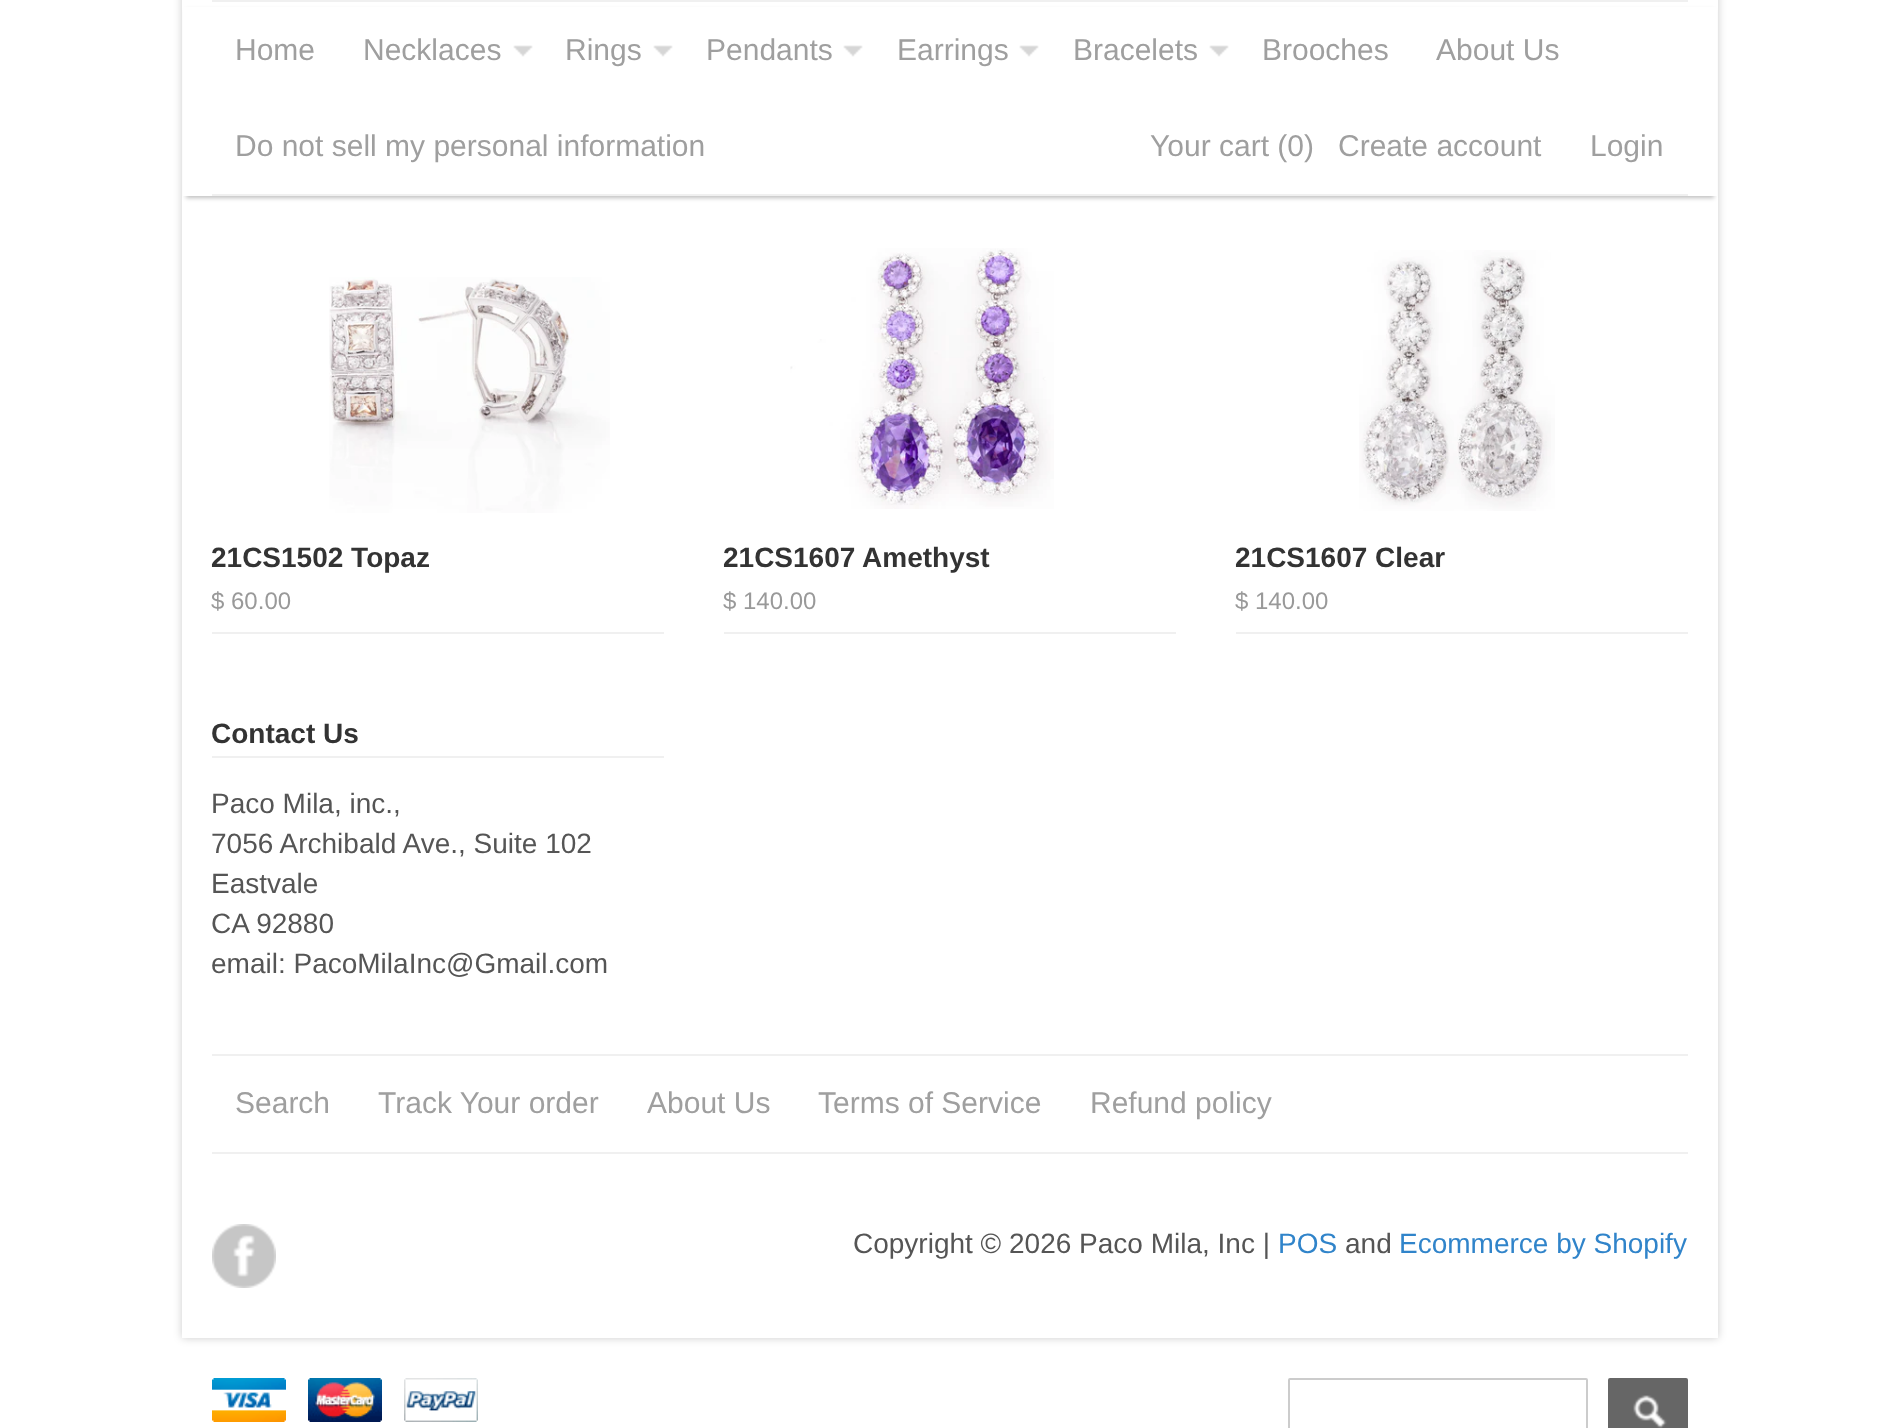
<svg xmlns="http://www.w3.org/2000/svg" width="1897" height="1428">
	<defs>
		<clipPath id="clip1"><path d="M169 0H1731V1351H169ZM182-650H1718V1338H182Z" clip-rule="evenodd" /></clipPath>
	</defs>
	<rect width="100%" height="100%" fill="#FFFFFF" />
	<g clip-path="url(#clip1)">
		<rect x="182" y="-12" width="1536" height="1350" fill="#000000" fill-opacity="0.2" filter="blur(4px)" />
	</g>
	<rect x="186" y="10" width="1528" height="188" fill="#000000" fill-opacity="0.25" filter="blur(2px)" />
	<rect x="183" y="7" width="1534" height="189" fill="#FFFFFF" />
	<rect x="212" y="0" width="1476" height="2" fill="#F0F0F0" />
	<rect x="212" y="194" width="1476" height="2" fill="#F0F0F0" />
	<text x="235" y="60" font-family="Liberation Sans" font-size="30" fill="#9F9F9F">Home</text>
	<image x="513" y="45" width="20" height="12" href="assets/img1.png" />
	<text x="363" y="60" font-family="Liberation Sans" font-size="30" fill="#9F9F9F">Necklaces</text>
	<image x="653" y="45" width="20" height="12" href="assets/img1.png" />
	<text x="565" y="60" font-family="Liberation Sans" font-size="30" fill="#9F9F9F">Rings</text>
	<image x="843" y="45" width="20" height="12" href="assets/img1.png" />
	<text x="706" y="60" font-family="Liberation Sans" font-size="30" fill="#9F9F9F">Pendants</text>
	<image x="1019" y="45" width="20" height="12" href="assets/img1.png" />
	<text x="897" y="60" font-family="Liberation Sans" font-size="30" fill="#9F9F9F">Earrings</text>
	<image x="1209" y="45" width="20" height="12" href="assets/img1.png" />
	<g font-family="Liberation Sans" font-size="30" fill="#9F9F9F">
		<text x="1073" y="60">Bracelets</text>
		<text x="1262" y="60">Brooches</text>
		<text x="1436" y="60">About Us</text>
		<text x="235" y="156">Do not sell my personal information</text>
		<text x="1150" y="156">Your cart (0)</text>
		<text x="1338" y="156">Create account</text>
		<text x="1590" y="156">Login</text>
	</g>
	<rect x="212" y="632" width="452" height="2" fill="#F0F0F0" />
	<image x="329" y="277" width="281" height="236" href="assets/img2.png" />
	<text x="211" y="567" font-family="Liberation Sans" font-size="28" font-weight="700" fill="#333333">21CS1502 Topaz</text>
	<text x="211" y="609" font-family="Liberation Sans" font-size="24" fill="#999999">$ 60.00</text>
	<rect x="724" y="632" width="452" height="2" fill="#F0F0F0" />
	<image x="790" y="248" width="264" height="261" href="assets/img3.png" />
	<text x="723" y="567" font-family="Liberation Sans" font-size="28" font-weight="700" fill="#333333">21CS1607 Amethyst</text>
	<text x="723" y="609" font-family="Liberation Sans" font-size="24" fill="#999999">$ 140.00</text>
	<rect x="1236" y="632" width="452" height="2" fill="#F0F0F0" />
	<image x="1359" y="250" width="196" height="261" href="assets/img4.png" />
	<text x="1235" y="567" font-family="Liberation Sans" font-size="28" font-weight="700" fill="#333333">21CS1607 Clear</text>
	<text x="1235" y="609" font-family="Liberation Sans" font-size="24" fill="#999999">$ 140.00</text>
	<rect x="212" y="756" width="452" height="2" fill="#F0F0F0" />
	<text x="211" y="743" font-family="Liberation Sans" font-size="28" font-weight="700" fill="#333333">Contact Us</text>
	<g font-family="Liberation Sans" font-size="28" fill="#555555">
		<text x="211" y="813">Paco Mila, inc.,</text>
		<text x="211" y="853">7056 Archibald Ave., Suite 102</text>
		<text x="211" y="893">Eastvale</text>
		<text x="211" y="933">CA 92880</text>
		<text x="211" y="973">email: PacoMilaInc@Gmail.com</text>
	</g>
	<rect x="212" y="1054" width="1476" height="2" fill="#F0F0F0" />
	<rect x="212" y="1152" width="1476" height="2" fill="#F0F0F0" />
	<g font-family="Liberation Sans" font-size="30" fill="#9F9F9F">
		<text x="235" y="1113">Search</text>
		<text x="378" y="1113">Track Your order</text>
		<text x="647" y="1113">About Us</text>
		<text x="818" y="1113">Terms of Service</text>
		<text x="1090" y="1113">Refund policy</text>
	</g>
	<image x="212" y="1224" width="64" height="64" href="assets/img5.png" />
	<text x="853" y="1253" font-family="Liberation Sans" font-size="28" fill="#555555">Copyright © 2026 Paco Mila, Inc |</text>
	<text x="1278" y="1253" font-family="Liberation Sans" font-size="28" fill="#3084CA">POS</text>
	<text x="1345" y="1253" font-family="Liberation Sans" font-size="28" fill="#555555">and</text>
	<text x="1399" y="1253" font-family="Liberation Sans" font-size="28" fill="#3084CA">Ecommerce by Shopify</text>
	<image x="212" y="1378" width="74" height="44" href="assets/img6.png" />
	<image x="308" y="1378" width="74" height="44" href="assets/img7.png" />
	<image x="404" y="1378" width="74" height="44" href="assets/img8.png" />
	<rect x="1289" y="1379" width="298" height="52" rx="1" fill="none" stroke="#CCCCCC" stroke-width="2" />
	<rect x="1608" y="1378" width="80" height="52" rx="2" fill="#666666" />
	<image x="1633" y="1395" width="34" height="33" href="assets/img9.png" />
</svg>
